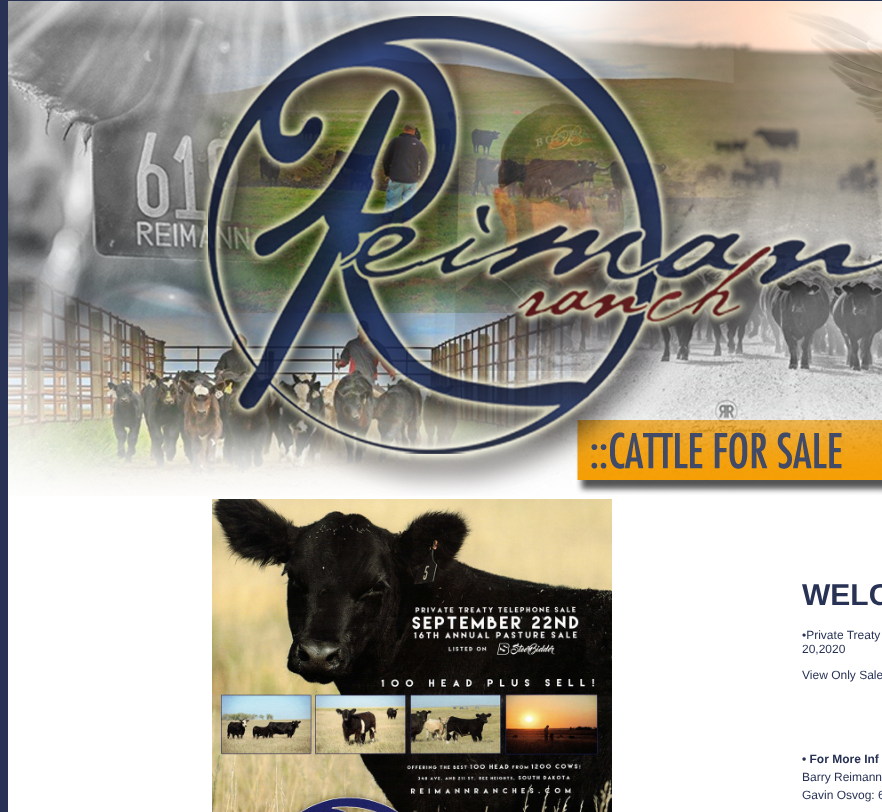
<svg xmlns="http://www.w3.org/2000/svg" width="882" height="812">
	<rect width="100%" height="100%" fill="#283255" />
	<image x="8" y="1" width="874" height="420" href="assets/img1.png" />
	<image x="8" y="421" width="570" height="75" href="assets/img2.png" />
	<image x="578" y="421" width="288" height="57" href="assets/img3.png" />
	<image x="866" y="421" width="16" height="57" href="assets/img4.png" />
	<image x="578" y="478" width="304" height="18" href="assets/img5.png" />
	<rect x="8" y="496" width="874" height="316" fill="#FFFFFF" />
	<image x="212" y="499" width="400" height="313" href="assets/img6.png" />
	<text x="802" y="605" font-family="Liberation Sans" font-size="30" font-weight="700" fill="#283255">WELC</text>
	<g font-family="Liberation Sans" font-size="12" fill="#283255">
		<text x="802" y="639">•Private Treaty</text>
		<text x="802" y="653">20,2020</text>
		<text x="802" y="679">View Only Sale</text>
	</g>
	<text x="802" y="763" font-family="Liberation Sans" font-size="12" font-weight="700" fill="#283255">• For More Inf</text>
	<g font-family="Liberation Sans" font-size="12" fill="#283255">
		<text x="802" y="781">Barry Reimann</text>
		<text x="802" y="799">Gavin Osvog: 6</text>
	</g>
</svg>
